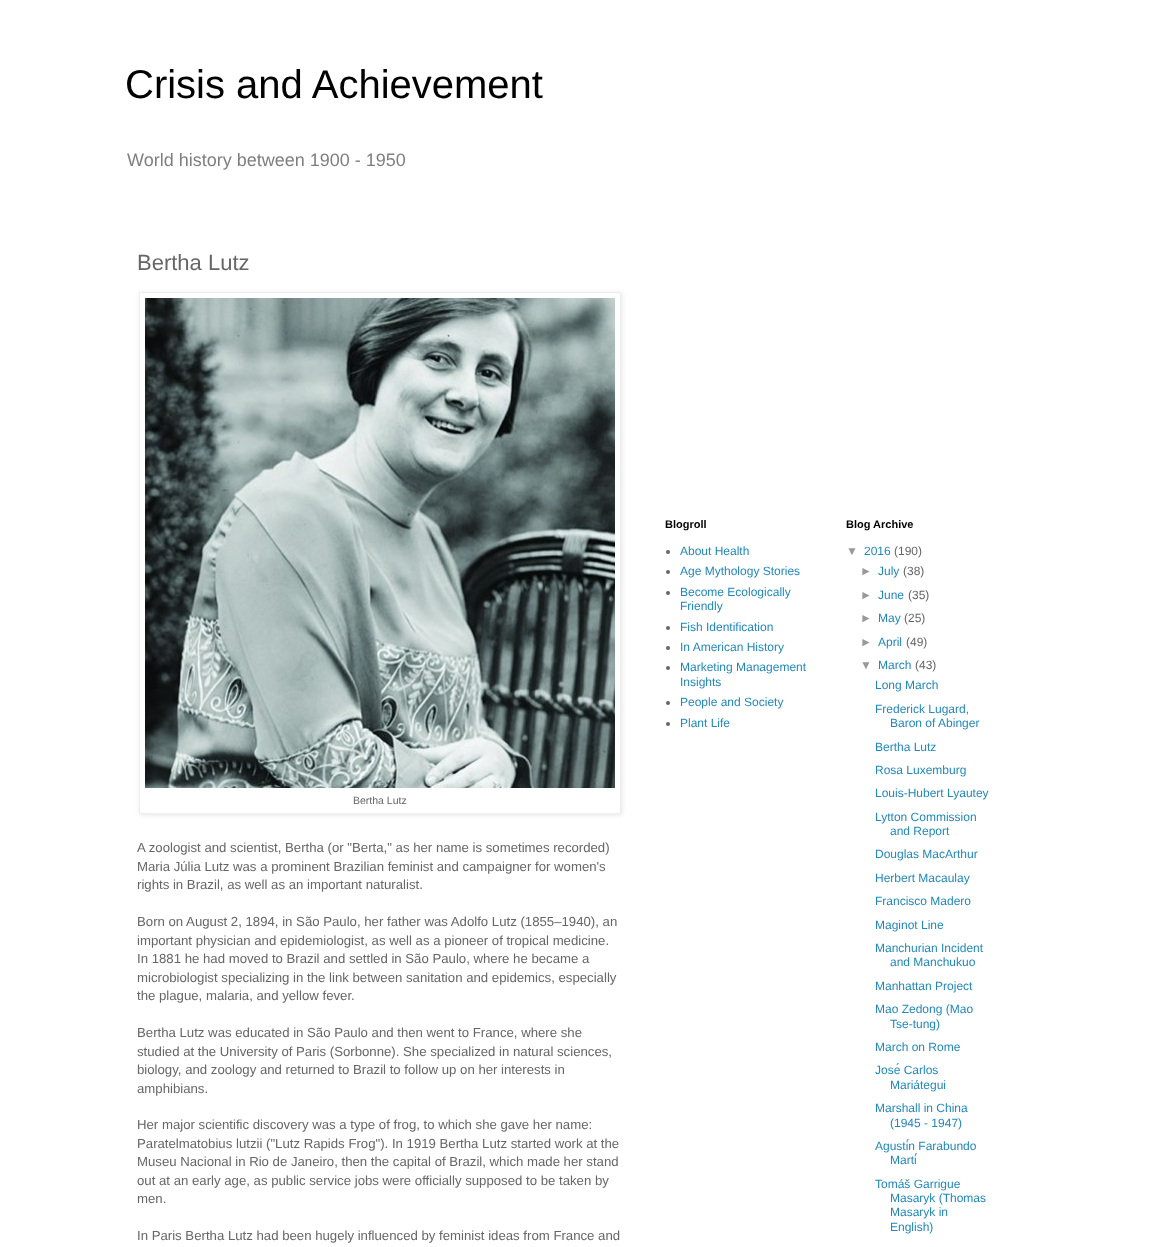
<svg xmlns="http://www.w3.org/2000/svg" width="1150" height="1247">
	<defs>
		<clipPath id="clip1"><path d="M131 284H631V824H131ZM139 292H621V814H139Z" clip-rule="evenodd" /></clipPath>
	</defs>
	<rect width="100%" height="100%" fill="#FFFFFF" />
	<text x="125" y="98" font-family="Liberation Sans" font-size="40" fill="#000000">Crisis and Achievement</text>
	<text x="127" y="166" font-family="Liberation Sans" font-size="18" fill="#7F7F7F">World history between 1900 - 1950</text>
	<text x="137" y="270" font-family="Liberation Sans" font-size="22" fill="#666666">Bertha Lutz</text>
	<g clip-path="url(#clip1)">
		<rect x="140" y="293" width="482" height="522" fill="#000000" fill-opacity="0.1" filter="blur(2.5px)" />
	</g>
	<rect x="139.5" y="292.5" width="481" height="521" fill="none" stroke="#EEEEEE" />
	<image x="145" y="298" width="470" height="490" href="assets/img1.png" />
	<text x="353" y="804" font-family="Liberation Sans" font-size="10.5" fill="#666666">Bertha Lutz</text>
	<g font-family="Liberation Sans" font-size="13.2" fill="#666666">
		<text x="137" y="852">A zoologist and scientist, Bertha (or "Berta," as her name is sometimes recorded)</text>
		<text x="137" y="871">Maria Júlia Lutz was a prominent Brazilian feminist and campaigner for women's</text>
		<text x="137" y="889">rights in Brazil, as well as an important naturalist.</text>
		<text x="137" y="926">Born on August 2, 1894, in São Paulo, her father was Adolfo Lutz (1855–1940), an</text>
		<text x="137" y="945">important physician and epidemiologist, as well as a pioneer of tropical medicine.</text>
		<text x="137" y="963">In 1881 he had moved to Brazil and settled in São Paulo, where he became a</text>
		<text x="137" y="982">microbiologist specializing in the link between sanitation and epidemics, especially</text>
		<text x="137" y="1000">the plague, malaria, and yellow fever.</text>
		<text x="137" y="1037">Bertha Lutz was educated in São Paulo and then went to France, where she</text>
		<text x="137" y="1056">studied at the University of Paris (Sorbonne). She specialized in natural sciences,</text>
		<text x="137" y="1074">biology, and zoology and returned to Brazil to follow up on her interests in</text>
		<text x="137" y="1093">amphibians.</text>
		<text x="137" y="1129">Her major scientific discovery was a type of frog, to which she gave her name:</text>
		<text x="137" y="1148">Paratelmatobius lutzii ("Lutz Rapids Frog"). In 1919 Bertha Lutz started work at the</text>
		<text x="137" y="1166">Museu Nacional in Rio de Janeiro, then the capital of Brazil, which made her stand</text>
		<text x="137" y="1185">out at an early age, as public service jobs were officially supposed to be taken by</text>
		<text x="137" y="1203">men.</text>
		<text x="137" y="1240">In Paris Bertha Lutz had been hugely influenced by feminist ideas from France and</text>
	</g>
	<text x="665" y="528" font-family="Liberation Sans" font-size="11" font-weight="700" fill="#000000">Blogroll</text>
	<circle cx="668" cy="552" r="2" fill="#666666" />
	<text x="680" y="555" font-family="Liberation Sans" font-size="12" fill="#2288BB">About Health</text>
	<circle cx="668" cy="572" r="2" fill="#666666" />
	<text x="680" y="575" font-family="Liberation Sans" font-size="12" fill="#2288BB">Age Mythology Stories</text>
	<circle cx="668" cy="593" r="2" fill="#666666" />
	<g font-family="Liberation Sans" font-size="12" fill="#2288BB">
		<text x="680" y="596">Become Ecologically</text>
		<text x="680" y="610">Friendly</text>
	</g>
	<circle cx="668" cy="628" r="2" fill="#666666" />
	<text x="680" y="631" font-family="Liberation Sans" font-size="12" fill="#2288BB">Fish Identification</text>
	<circle cx="668" cy="648" r="2" fill="#666666" />
	<text x="680" y="651" font-family="Liberation Sans" font-size="12" fill="#2288BB">In American History</text>
	<circle cx="668" cy="668" r="2" fill="#666666" />
	<g font-family="Liberation Sans" font-size="12" fill="#2288BB">
		<text x="680" y="671">Marketing Management</text>
		<text x="680" y="686">Insights</text>
	</g>
	<circle cx="668" cy="703" r="2" fill="#666666" />
	<text x="680" y="706" font-family="Liberation Sans" font-size="12" fill="#2288BB">People and Society</text>
	<circle cx="668" cy="724" r="2" fill="#666666" />
	<text x="680" y="727" font-family="Liberation Sans" font-size="12" fill="#2288BB">Plant Life</text>
	<text x="846" y="528" font-family="Liberation Sans" font-size="11" font-weight="700" fill="#000000">Blog Archive</text>
	<text x="846" y="555" font-family="Liberation Sans" font-size="12" fill="#999999">▼</text>
	<text x="864" y="555" font-family="Liberation Sans" font-size="12" fill="#2288BB">2016</text>
	<text x="894" y="555" font-family="Liberation Sans" font-size="12" fill="#666666">(190)</text>
	<text x="860" y="575" font-family="Liberation Sans" font-size="12" fill="#999999">►</text>
	<text x="878" y="575" font-family="Liberation Sans" font-size="12" fill="#2288BB">July</text>
	<text x="903" y="575" font-family="Liberation Sans" font-size="12" fill="#666666">(38)</text>
	<text x="860" y="599" font-family="Liberation Sans" font-size="12" fill="#999999">►</text>
	<text x="878" y="599" font-family="Liberation Sans" font-size="12" fill="#2288BB">June</text>
	<text x="908" y="599" font-family="Liberation Sans" font-size="12" fill="#666666">(35)</text>
	<text x="860" y="622" font-family="Liberation Sans" font-size="12" fill="#999999">►</text>
	<text x="878" y="622" font-family="Liberation Sans" font-size="12" fill="#2288BB">May</text>
	<text x="904" y="622" font-family="Liberation Sans" font-size="12" fill="#666666">(25)</text>
	<text x="860" y="646" font-family="Liberation Sans" font-size="12" fill="#999999">►</text>
	<text x="878" y="646" font-family="Liberation Sans" font-size="12" fill="#2288BB">April</text>
	<text x="906" y="646" font-family="Liberation Sans" font-size="12" fill="#666666">(49)</text>
	<text x="860" y="669" font-family="Liberation Sans" font-size="12" fill="#999999">▼</text>
	<text x="878" y="669" font-family="Liberation Sans" font-size="12" fill="#2288BB">March</text>
	<text x="915" y="669" font-family="Liberation Sans" font-size="12" fill="#666666">(43)</text>
	<g font-family="Liberation Sans" font-size="12" fill="#2288BB">
		<text x="875" y="689">Long March</text>
		<text x="875" y="713">Frederick Lugard,</text>
		<text x="890" y="727">Baron of Abinger</text>
		<text x="875" y="751">Bertha Lutz</text>
		<text x="875" y="774">Rosa Luxemburg</text>
		<text x="875" y="797">Louis-Hubert Lyautey</text>
		<text x="875" y="821">Lytton Commission</text>
		<text x="890" y="835">and Report</text>
		<text x="875" y="858">Douglas MacArthur</text>
		<text x="875" y="882">Herbert Macaulay</text>
		<text x="875" y="905">Francisco Madero</text>
		<text x="875" y="929">Maginot Line</text>
		<text x="875" y="952">Manchurian Incident</text>
		<text x="890" y="966">and Manchukuo</text>
		<text x="875" y="990">Manhattan Project</text>
		<text x="875" y="1013">Mao Zedong (Mao</text>
		<text x="890" y="1028">Tse-tung)</text>
		<text x="875" y="1051">March on Rome</text>
		<text x="875" y="1074">José Carlos</text>
		<text x="890" y="1089">Mariátegui</text>
		<text x="875" y="1112">Marshall in China</text>
		<text x="890" y="1127">(1945 - 1947)</text>
		<text x="875" y="1150">Agustín Farabundo</text>
		<text x="890" y="1164">Martí</text>
		<text x="875" y="1188">Tomáš Garrigue</text>
		<text x="890" y="1202">Masaryk (Thomas</text>
		<text x="890" y="1216">Masaryk in</text>
		<text x="890" y="1231">English)</text>
	</g>
</svg>
